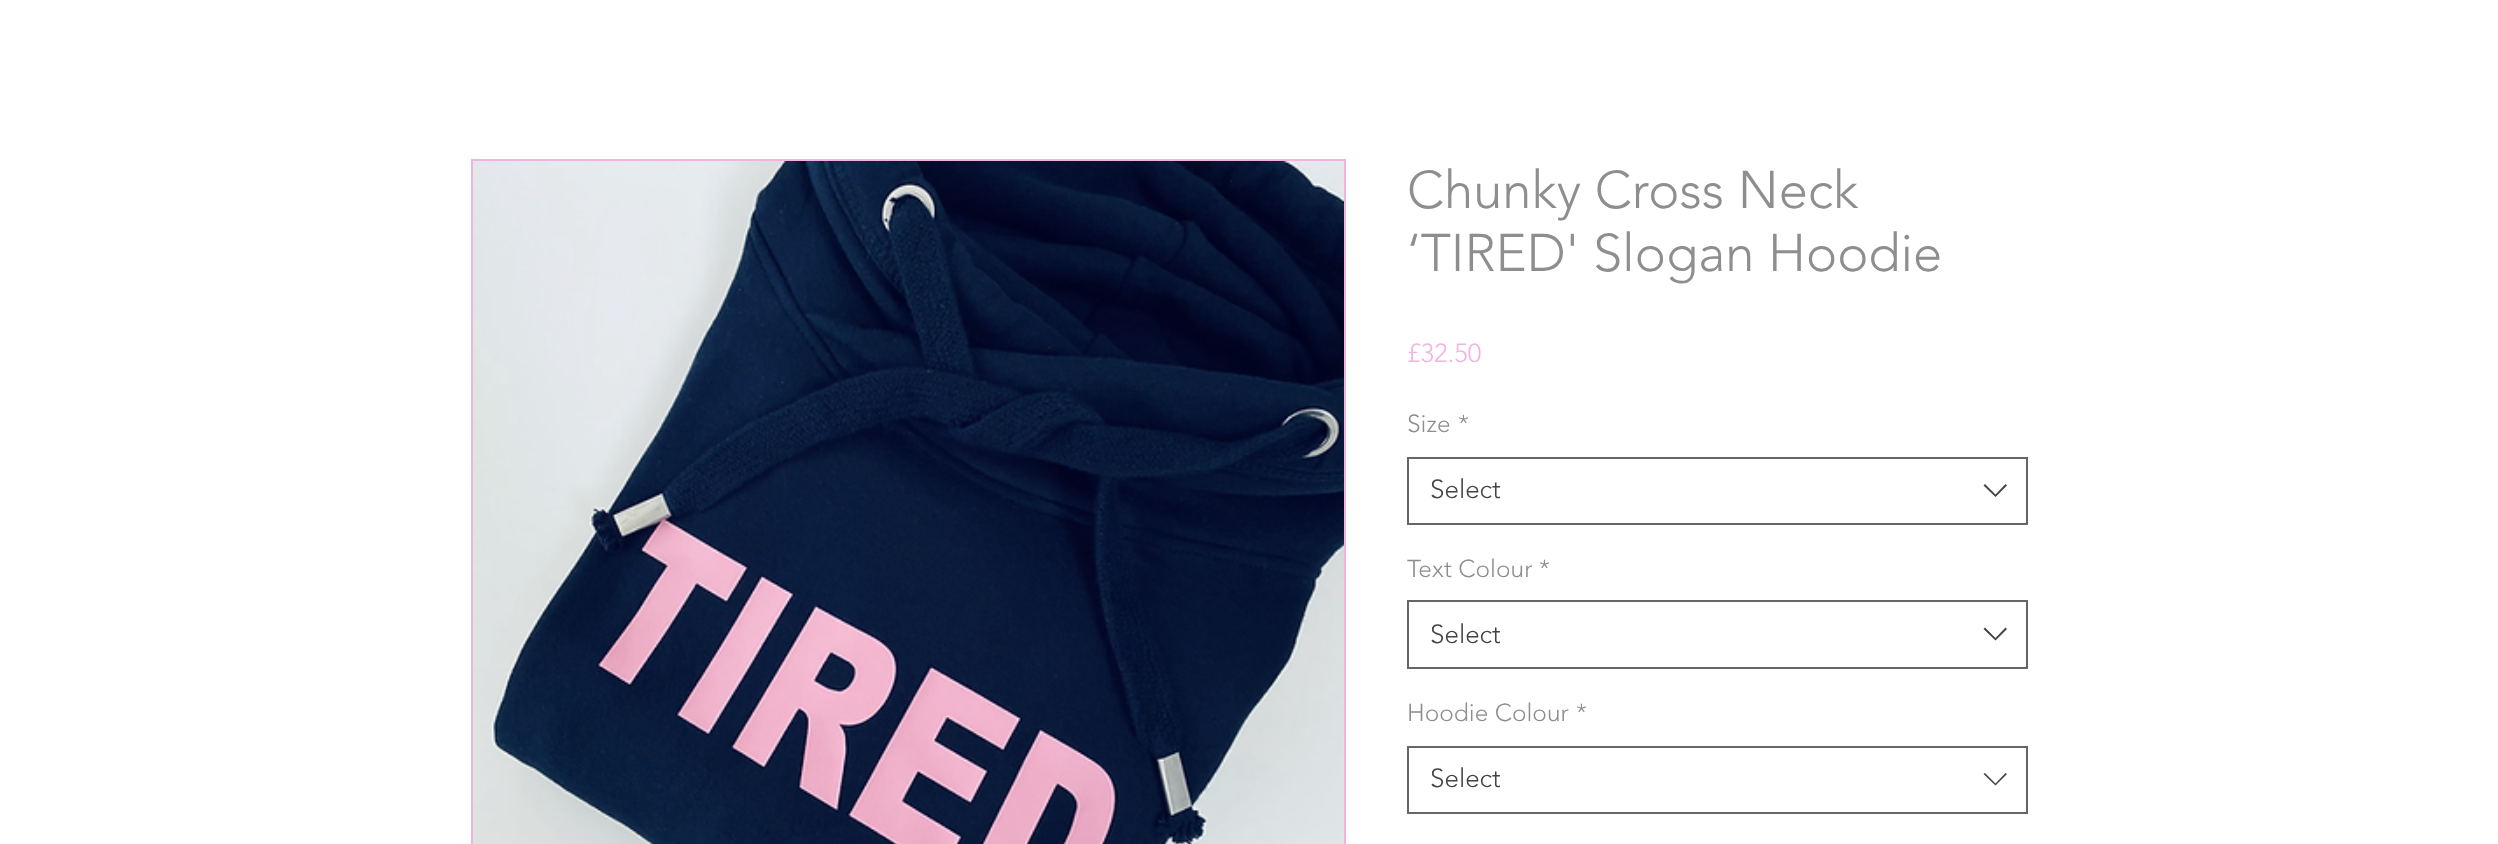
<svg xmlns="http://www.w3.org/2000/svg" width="2498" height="844">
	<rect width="100%" height="100%" fill="#FFFFFF" />
	<rect x="472" y="160" width="873" height="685" fill="none" stroke="#F2B3E1" stroke-width="2" />
	<image x="473" y="161" width="871" height="683" href="assets/img1.png" />
	<g font-family="'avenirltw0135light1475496'" font-size="52.5" font-weight="300" fill="#8E8E8F">
		<text x="1407" y="208">Chunky Cross Neck</text>
		<text x="1407" y="271">‘TIRED' Slogan Hoodie</text>
	</g>
	<text x="1407" y="362" font-family="'avenirltw0135light1475496'" font-size="26" font-weight="300" fill="#F2B3E1">£32.50</text>
	<g font-family="'avenirltw0135light1475496'" font-size="24.5" font-weight="300" fill="#8E8E8F">
		<text x="1407" y="432">Size</text>
		<text x="1458" y="432">*</text>
	</g>
	<rect x="1408" y="458" width="619" height="66" fill="none" stroke="#666666" stroke-width="2" />
	<text x="1430" y="498" font-family="'avenirltw0135light1475496'" font-size="26" font-weight="300" fill="#444444">Select</text>
	<path d="M2005.5 484L2007 485.5L1995.5 497L1983.5 485.5L1985 484L1995.5 494.5Z" fill="#444444" fill-rule="evenodd" />
	<g font-family="'avenirltw0135light1475496'" font-size="24.5" font-weight="300" fill="#8E8E8F">
		<text x="1407" y="577">Text Colour</text>
		<text x="1539" y="577">*</text>
	</g>
	<rect x="1408" y="601" width="619" height="67" fill="none" stroke="#666666" stroke-width="2" />
	<text x="1430" y="643" font-family="'avenirltw0135light1475496'" font-size="26" font-weight="300" fill="#444444">Select</text>
	<path d="M2005.5 627.5L2007 629L1995.5 640.5L1983.5 629L1985 627.5L1995.5 638Z" fill="#444444" fill-rule="evenodd" />
	<g font-family="'avenirltw0135light1475496'" font-size="24.5" font-weight="300" fill="#8E8E8F">
		<text x="1407" y="721">Hoodie Colour</text>
		<text x="1576" y="721">*</text>
	</g>
	<rect x="1408" y="747" width="619" height="66" fill="none" stroke="#666666" stroke-width="2" />
	<text x="1430" y="787" font-family="'avenirltw0135light1475496'" font-size="26" font-weight="300" fill="#444444">Select</text>
	<path d="M2005.5 773L2007 774L1995.5 785.5L1983.5 774L1985 773L1995.5 783.5Z" fill="#444444" fill-rule="evenodd" />
</svg>
